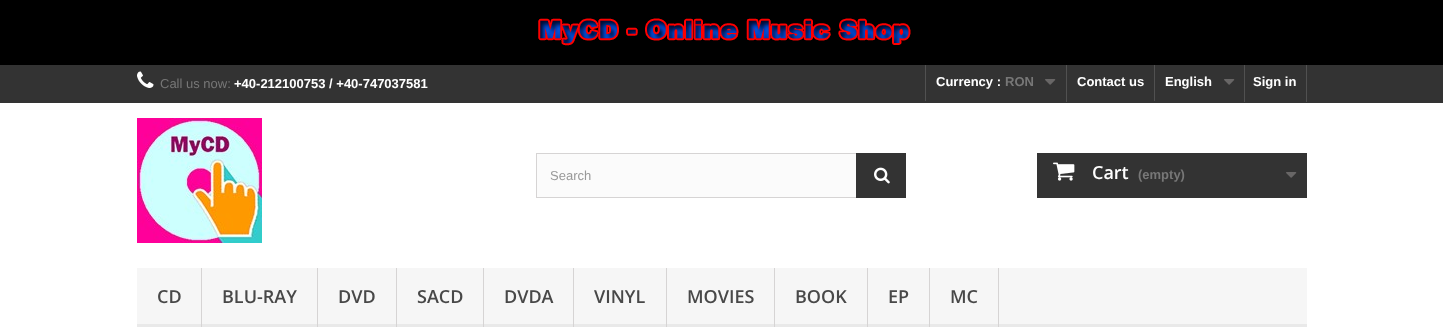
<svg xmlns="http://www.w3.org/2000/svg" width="1443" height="330">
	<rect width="100%" height="100%" fill="#FFFFFF" />
	<rect x="0" y="0" width="1443" height="65" fill="#000000" />
	<image x="538" y="18" width="373" height="28" href="assets/img1.png" />
	<rect x="0" y="65" width="1443" height="38" fill="#333333" />
	<image x="137" y="71" width="17" height="17" href="assets/img2.png" />
	<text x="160" y="88" font-family="Liberation Sans" font-size="13" fill="#777777">Call us now:</text>
	<text x="234" y="88" font-family="Liberation Sans" font-size="13" font-weight="700" fill="#FFFFFF">+40-212100753 / +40-747037581</text>
	<rect x="925" y="65" width="1" height="36" fill="#515151" />
	<text x="936" y="86" font-family="Liberation Sans" font-size="13" font-weight="700" fill="#FFFFFF">Currency :</text>
	<text x="1005" y="86" font-family="Liberation Sans" font-size="13" font-weight="700" fill="#777777">RON</text>
	<image x="1045" y="79" width="11" height="6" href="assets/img3.png" />
	<rect x="1066" y="65" width="1" height="37" fill="#515151" />
	<text x="1077" y="86" font-family="Liberation Sans" font-size="13" font-weight="700" fill="#FFFFFF">Contact us</text>
	<rect x="1154" y="65" width="1" height="36" fill="#515151" />
	<text x="1165" y="86" font-family="Liberation Sans" font-size="13" font-weight="700" fill="#FFFFFF">English</text>
	<image x="1224" y="79" width="11" height="6" href="assets/img3.png" />
	<rect x="1306" y="65" width="1" height="37" fill="#515151" />
	<rect x="1244" y="65" width="1" height="37" fill="#515151" />
	<text x="1253" y="86" font-family="Liberation Sans" font-size="13" font-weight="700" fill="#FFFFFF">Sign in</text>
	<image x="137" y="118" width="125" height="125" href="assets/img4.png" />
	<rect x="537" y="154" width="319" height="43" fill="#FBFBFB" />
	<rect x="536.5" y="153.5" width="369" height="44" fill="none" stroke="#D6D4D4" />
	<text x="550" y="180" font-family="Liberation Sans" font-size="13" fill="#999999">Search</text>
	<rect x="856" y="153" width="50" height="45" fill="#333333" />
	<image x="874" y="167" width="16" height="17" href="assets/img5.png" />
	<rect x="1037" y="153" width="270" height="45" fill="#333333" />
	<image x="1053" y="162" width="22" height="19" href="assets/img6.png" />
	<text x="1092" y="179" font-family="Open Sans" font-size="18" font-weight="600" fill="#FFFFFF">Cart</text>
	<text x="1138" y="179" font-family="Liberation Sans" font-size="13" font-weight="700" fill="#777777">(empty)</text>
	<image x="1286" y="172" width="11" height="6" href="assets/img3.png" />
	<rect x="137" y="268" width="1170" height="56" fill="#F6F6F6" />
	<rect x="137" y="324" width="1170" height="3" fill="#E9E9E9" />
	<rect x="201" y="268" width="1" height="59" fill="#D6D4D4" />
	<text x="157" y="303" font-family="Open Sans" font-size="18" font-weight="600" fill="#484848">CD</text>
	<rect x="317" y="268" width="1" height="59" fill="#D6D4D4" />
	<text x="222" y="303" font-family="Open Sans" font-size="18" font-weight="600" fill="#484848">BLU-RAY</text>
	<rect x="396" y="268" width="1" height="59" fill="#D6D4D4" />
	<text x="338" y="303" font-family="Open Sans" font-size="18" font-weight="600" fill="#484848">DVD</text>
	<rect x="483" y="268" width="1" height="59" fill="#D6D4D4" />
	<text x="417" y="303" font-family="Open Sans" font-size="18" font-weight="600" fill="#484848">SACD</text>
	<rect x="573" y="268" width="1" height="59" fill="#D6D4D4" />
	<text x="504" y="303" font-family="Open Sans" font-size="18" font-weight="600" fill="#484848">DVDA</text>
	<rect x="666" y="268" width="1" height="59" fill="#D6D4D4" />
	<text x="594" y="303" font-family="Open Sans" font-size="18" font-weight="600" fill="#484848">VINYL</text>
	<rect x="774" y="268" width="1" height="59" fill="#D6D4D4" />
	<text x="687" y="303" font-family="Open Sans" font-size="18" font-weight="600" fill="#484848">MOVIES</text>
	<rect x="867" y="268" width="1" height="59" fill="#D6D4D4" />
	<text x="795" y="303" font-family="Open Sans" font-size="18" font-weight="600" fill="#484848">BOOK</text>
	<rect x="929" y="268" width="1" height="59" fill="#D6D4D4" />
	<text x="888" y="303" font-family="Open Sans" font-size="18" font-weight="600" fill="#484848">EP</text>
	<rect x="998" y="268" width="1" height="59" fill="#D6D4D4" />
	<text x="950" y="303" font-family="Open Sans" font-size="18" font-weight="600" fill="#484848">MC</text>
</svg>
